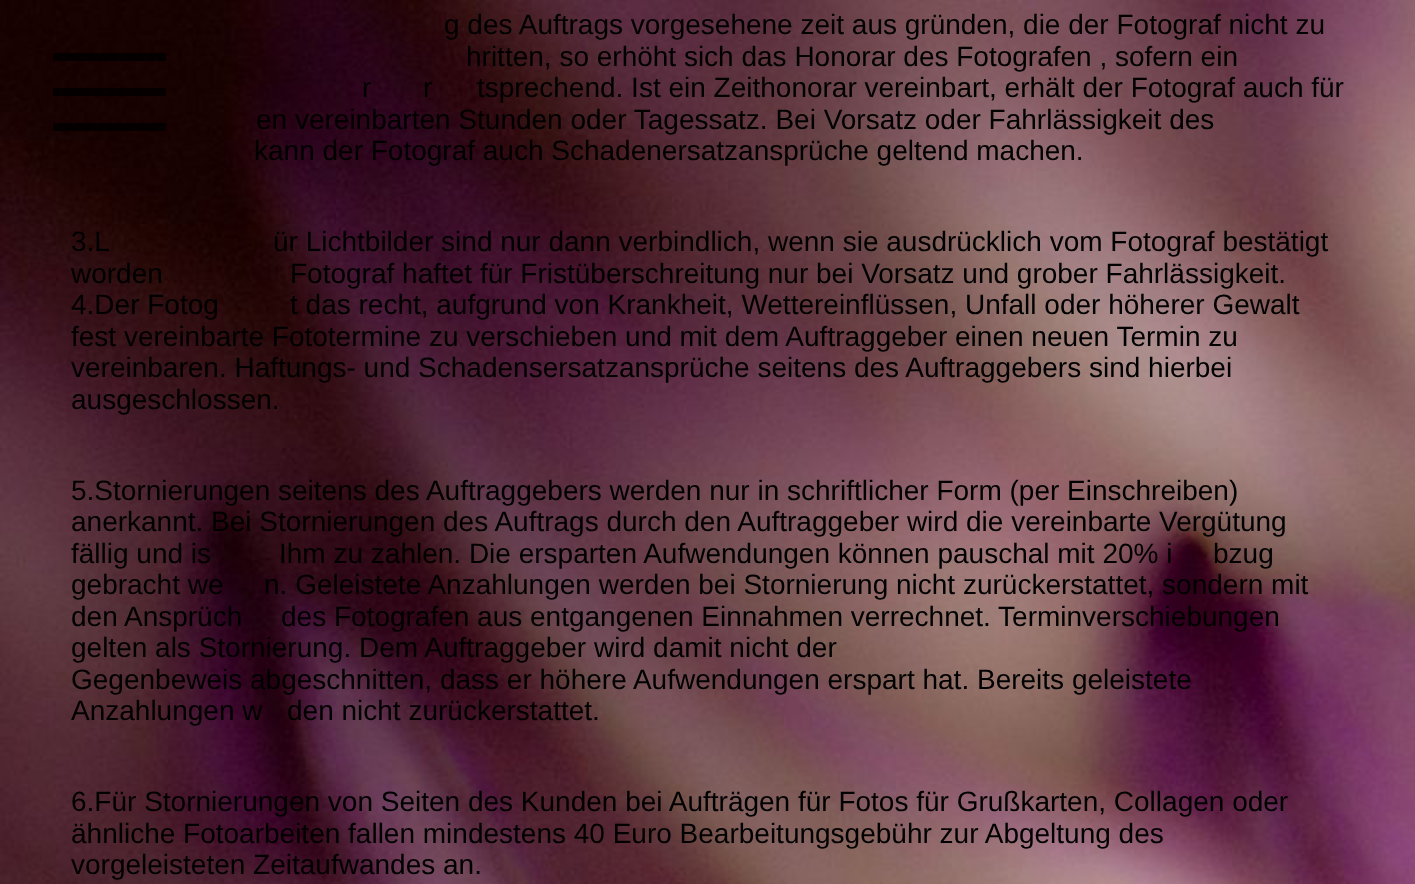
<svg xmlns="http://www.w3.org/2000/svg" width="1415" height="884">
	<rect width="100%" height="100%" fill="#FFFFFF" />
	<image x="0" y="0" width="1415" height="884" href="assets/img1.png" />
	<g font-family="Liberation Sans" font-size="28" fill="#000000">
		<text x="444" y="34">g des Auftrags vorgesehene zeit aus gründen, die der Fotograf nicht zu</text>
		<text x="466" y="66">hritten, so erhöht sich das Honorar des Fotografen , sofern ein</text>
		<text x="362" y="97">r</text>
		<text x="423" y="97">r</text>
		<text x="477" y="97">tsprechend. Ist ein Zeithonorar vereinbart, erhält der Fotograf auch für</text>
		<text x="256" y="129">en vereinbarten Stunden oder Tagessatz. Bei Vorsatz oder Fahrlässigkeit des</text>
		<text x="254" y="160">kann der Fotograf auch Schadenersatzansprüche geltend machen.</text>
		<text x="71" y="251">3.L</text>
		<text x="273" y="251">ür Lichtbilder sind nur dann verbindlich, wenn sie ausdrücklich vom Fotograf bestätigt</text>
		<text x="71" y="283">worden</text>
		<text x="290" y="283">Fotograf haftet für Fristüberschreitung nur bei Vorsatz und grober Fahrlässigkeit.</text>
		<text x="71" y="314">4.Der Fotog</text>
		<text x="290" y="314">t das recht, aufgrund von Krankheit, Wettereinflüssen, Unfall oder höherer Gewalt</text>
		<text x="71" y="346">fest vereinbarte Fototermine zu verschieben und mit dem Auftraggeber einen neuen Termin zu</text>
		<text x="71" y="377">vereinbaren. Haftungs- und Schadensersatzansprüche seitens des Auftraggebers sind hierbei</text>
		<text x="71" y="409">ausgeschlossen.</text>
		<text x="71" y="500">5.Stornierungen seitens des Auftraggebers werden nur in schriftlicher Form (per Einschreiben)</text>
		<text x="71" y="531">anerkannt. Bei Stornierungen des Auftrags durch den Auftraggeber wird die vereinbarte Vergütung</text>
		<text x="71" y="563">fällig und is</text>
		<text x="279" y="563">Ihm zu zahlen. Die ersparten Aufwendungen können pauschal mit 20% i</text>
		<text x="1213" y="563">bzug</text>
		<text x="71" y="594">gebracht we</text>
		<text x="264" y="594">n. Geleistete Anzahlungen werden bei Stornierung nicht zurückerstattet, sondern mit</text>
		<text x="71" y="626">den Ansprüch</text>
		<text x="281" y="626">des Fotografen aus entgangenen Einnahmen verrechnet. Terminverschiebungen</text>
		<text x="71" y="657">gelten als Stornierung. Dem Auftraggeber wird damit nicht der</text>
		<text x="71" y="689">Gegenbeweis abgeschnitten, dass er höhere Aufwendungen erspart hat. Bereits geleistete</text>
		<text x="71" y="720">Anzahlungen w</text>
		<text x="287" y="720">den nicht zurückerstattet.</text>
		<text x="71" y="811">6.Für Stornierungen von Seiten des Kunden bei Aufträgen für Fotos für Grußkarten, Collagen oder</text>
		<text x="71" y="843">ähnliche Fotoarbeiten fallen mindestens 40 Euro Bearbeitungsgebühr zur Abgeltung des</text>
		<text x="71" y="874">vorgeleisteten Zeitaufwandes an.</text>
	</g>
	<rect x="53" y="53" width="113" height="8" fill="#000000" fill-opacity="0.75" />
	<rect x="53" y="88" width="113" height="8" fill="#000000" fill-opacity="0.75" />
	<rect x="53" y="123" width="113" height="8" fill="#000000" fill-opacity="0.75" />
</svg>
